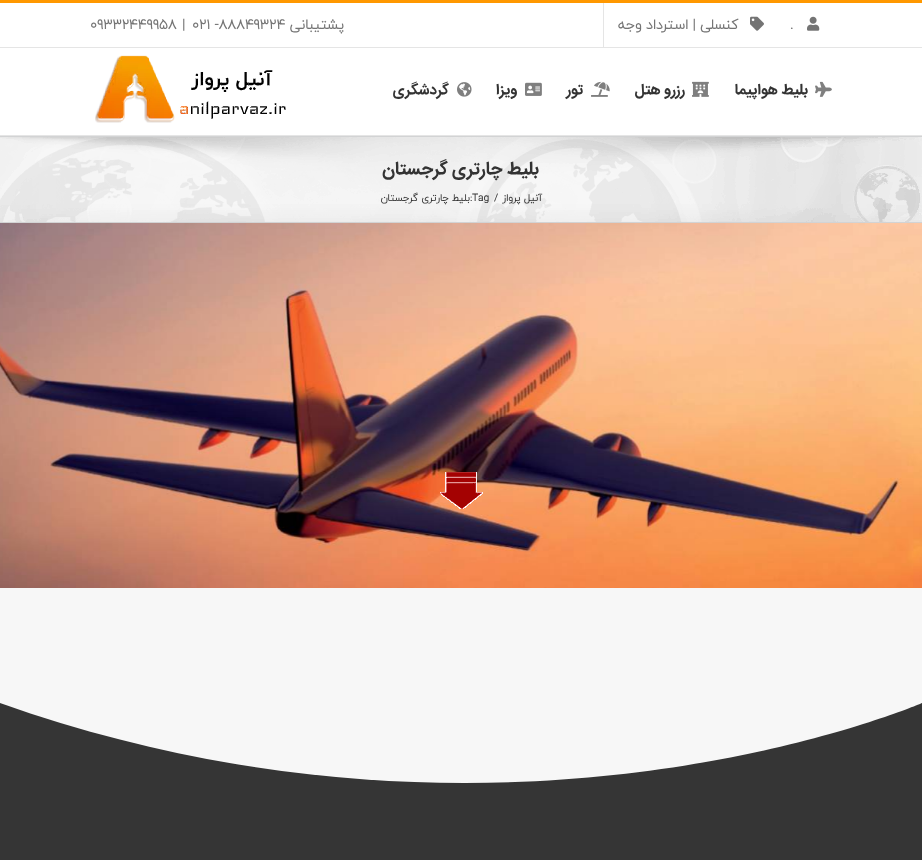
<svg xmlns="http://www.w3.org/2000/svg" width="922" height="860">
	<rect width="100%" height="100%" fill="#F7F7F7" />
	<rect x="0" y="3" width="922" height="44" fill="#FFFFFF" />
	<rect x="0" y="0" width="922" height="3" fill="#FF9800" />
	<rect x="0" y="47" width="922" height="1" fill="#E5E5E5" />
	<image x="807" y="16" width="13" height="15" href="assets/img1.png" />
	<text x="790" y="29" font-family="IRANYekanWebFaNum" font-size="14" font-weight="700" fill="#747474">.</text>
	<rect x="603" y="3" width="1" height="44" fill="#E5E5E5" />
	<image x="750" y="16" width="14" height="15" href="assets/img2.png" />
	<g font-family="IRANYekanWebFaNum" font-size="14" font-weight="700" direction="rtl" fill="#747474">
		<text x="738" y="29">کنسلی | استرداد وجه</text>
		<text x="344" y="29">پشتیبانی</text>
	</g>
	<g font-family="IRANYekanWebFaNum" font-size="14" font-weight="700" fill="#747474">
		<text x="192" y="29">021 -88849324</text>
		<text x="182" y="29">|</text>
		<text x="90" y="29">09332449958</text>
	</g>
	<rect x="0" y="48" width="922" height="87" fill="#FFFFFF" />
	<rect x="0" y="135" width="922" height="1" fill="#E5E5E5" />
	<image x="815" y="81" width="17" height="16" href="assets/img3.png" />
	<text x="808" y="94" font-family="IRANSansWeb" font-size="15" font-weight="700" direction="rtl" fill="#333333">بلیط هواپیما</text>
	<image x="692" y="81" width="17" height="16" href="assets/img4.png" />
	<text x="685" y="94" font-family="IRANSansWeb" font-size="15" font-weight="700" direction="rtl" fill="#333333">رزرو هتل</text>
	<image x="591" y="81" width="19" height="16" href="assets/img5.png" />
	<text x="583" y="94" font-family="IRANSansWeb" font-size="15" font-weight="700" direction="rtl" fill="#333333">تور</text>
	<image x="525" y="82" width="17" height="14" href="assets/img6.png" />
	<text x="517" y="94" font-family="IRANSansWeb" font-size="15" font-weight="700" direction="rtl" fill="#333333">ویزا</text>
	<image x="457" y="82" width="15" height="15" href="assets/img7.png" />
	<text x="449" y="94" font-family="IRANSansWeb" font-size="15" font-weight="700" direction="rtl" fill="#333333">گردشگری</text>
	<image x="95" y="55" width="191" height="68" href="assets/img8.png" />
	<image x="0" y="137" width="922" height="85" href="assets/img9.png" />
	<rect x="0" y="136" width="922" height="1" fill="#D2D3D4" />
	<rect x="0" y="222" width="922" height="1" fill="#D2D3D4" />
	<text x="539" y="174" font-family="IRANSansWeb" font-size="18" font-weight="700" direction="rtl" fill="#333333">بلیط چارتری گرجستان</text>
	<text x="542" y="201" font-family="IRANYekanWebFaNum" font-size="10" font-weight="700" direction="rtl" fill="#333333">آنیل پرواز</text>
	<g font-family="IRANYekanWebFaNum" font-size="10" font-weight="700" fill="#333333">
		<text x="494" y="201">/</text>
		<text x="470" y="201">:Tag</text>
	</g>
	<text x="470" y="201" font-family="IRANYekanWebFaNum" font-size="10" font-weight="700" direction="rtl" fill="#333333">بلیط چارتری گرجستان</text>
	<image x="0" y="223" width="922" height="365" href="assets/img10.png" />
	<image x="440" y="472" width="43" height="37" href="assets/img11.png" />
	<rect x="0" y="703" width="922" height="157" fill="#353535" />
	<path d="M0 703C507 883 922 703 922 703Z" fill="#F7F7F7" />
</svg>
